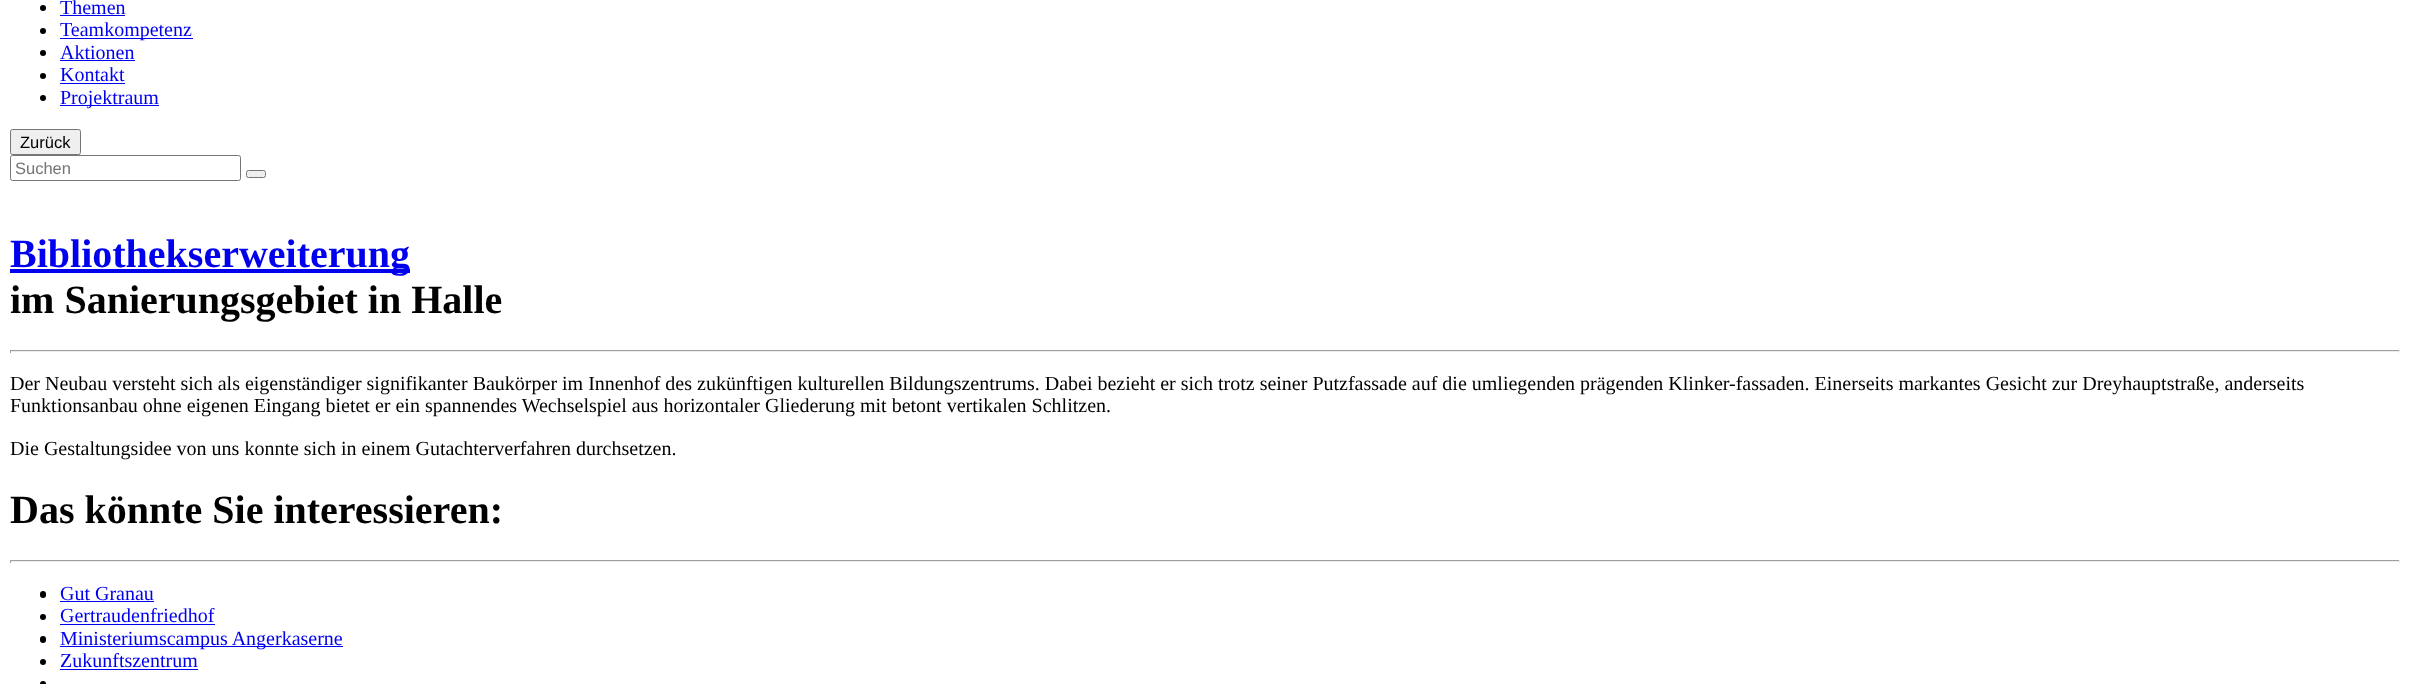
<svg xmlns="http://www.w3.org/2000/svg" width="2410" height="684">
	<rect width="100%" height="100%" fill="#FFFFFF" />
	<circle cx="43" cy="8" r="3" fill="#000000" />
	<text x="60" y="14" font-family="Liberation Serif" font-size="20" fill="#0000EE">Themen</text>
	<rect x="60" y="15" width="65" height="1" fill="#0000EE" />
	<circle cx="43" cy="31" r="3" fill="#000000" />
	<rect x="60" y="38" width="133" height="1" fill="#0000EE" />
	<text x="60" y="36" font-family="Liberation Serif" font-size="20" fill="#0000EE">Teamkompetenz</text>
	<circle cx="43" cy="53" r="3" fill="#000000" />
	<text x="60" y="59" font-family="Liberation Serif" font-size="20" fill="#0000EE">Aktionen</text>
	<rect x="60" y="60" width="75" height="1" fill="#0000EE" />
	<circle cx="43" cy="76" r="3" fill="#000000" />
	<text x="60" y="81" font-family="Liberation Serif" font-size="20" fill="#0000EE">Kontakt</text>
	<rect x="60" y="83" width="65" height="1" fill="#0000EE" />
	<circle cx="43" cy="98" r="3" fill="#000000" />
	<rect x="60" y="105" width="99" height="1" fill="#0000EE" />
	<text x="60" y="104" font-family="Liberation Serif" font-size="20" fill="#0000EE">Projektraum</text>
	<rect x="10.5" y="129.5" width="70" height="25" rx="2" fill="#EFEFEF" stroke="#767676" />
	<text x="20" y="148" font-family="Liberation Sans" font-size="16.5" fill="#000000">Zurück</text>
	<rect x="10.5" y="155.5" width="230" height="25" rx="2" fill="none" stroke="#767676" />
	<text x="15" y="174" font-family="Liberation Sans" font-size="16.5" fill="#757575">Suchen</text>
	<rect x="246.5" y="170.5" width="19" height="7" rx="2" fill="#EFEFEF" stroke="#767676" />
	<rect x="10" y="269" width="400" height="4" fill="#0000EE" />
	<text x="10" y="267" font-family="Liberation Serif" font-size="40" font-weight="700" fill="#0000EE">Bibliothekserweiterung</text>
	<text x="10" y="313" font-family="Liberation Serif" font-size="40" font-weight="700" fill="#000000">im Sanierungsgebiet in Halle</text>
	<rect x="10" y="350" width="2390" height="1" fill="#9F9F9F" />
	<rect x="2399" y="350" width="1" height="3" fill="#EEEEEE" />
	<rect x="10" y="351" width="2390" height="1" fill="#EEEEEE" />
	<rect x="10" y="350" width="1" height="3" fill="#9F9F9F" />
	<g font-family="Liberation Serif" font-size="20" fill="#000000">
		<text x="10" y="390">Der Neubau versteht sich als eigenständiger signifikanter Baukörper im Innenhof des zukünftigen kulturellen Bildungszentrums. Dabei bezieht er sich trotz seiner Putzfassade auf die umliegenden prägenden Klinker-fassaden. Einerseits markantes Gesicht zur Dreyhauptstraße, anderseits</text>
		<text x="10" y="412">Funktionsanbau ohne eigenen Eingang bietet er ein spannendes Wechselspiel aus horizontaler Gliederung mit betont vertikalen Schlitzen.</text>
		<text x="10" y="455">Die Gestaltungsidee von uns konnte sich in einem Gutachterverfahren durchsetzen.</text>
	</g>
	<text x="10" y="523" font-family="Liberation Serif" font-size="40" font-weight="700" fill="#000000">Das könnte Sie interessieren:</text>
	<rect x="10" y="560" width="2390" height="1" fill="#9F9F9F" />
	<rect x="2399" y="560" width="1" height="3" fill="#EEEEEE" />
	<rect x="10" y="561" width="2390" height="1" fill="#EEEEEE" />
	<rect x="10" y="560" width="1" height="3" fill="#9F9F9F" />
	<rect x="40" y="591" width="6" height="7" rx="3" fill="#000000" />
	<text x="60" y="600" font-family="Liberation Serif" font-size="20" fill="#0000EE">Gut Granau</text>
	<rect x="60" y="601" width="94" height="1" fill="#0000EE" />
	<circle cx="43" cy="617" r="3" fill="#000000" />
	<text x="60" y="622" font-family="Liberation Serif" font-size="20" fill="#0000EE">Gertraudenfriedhof</text>
	<rect x="60" y="624" width="155" height="1" fill="#0000EE" />
	<rect x="40" y="636" width="6" height="7" rx="3" fill="#000000" />
	<rect x="60" y="646" width="283" height="1" fill="#0000EE" />
	<text x="60" y="645" font-family="Liberation Serif" font-size="20" fill="#0000EE">Ministeriumscampus Angerkaserne</text>
	<circle cx="43" cy="662" r="3" fill="#000000" />
	<text x="60" y="667" font-family="Liberation Serif" font-size="20" fill="#0000EE">Zukunftszentrum</text>
	<rect x="60" y="669" width="138" height="1" fill="#0000EE" />
	<circle cx="43" cy="684" r="3" fill="#000000" />
</svg>
